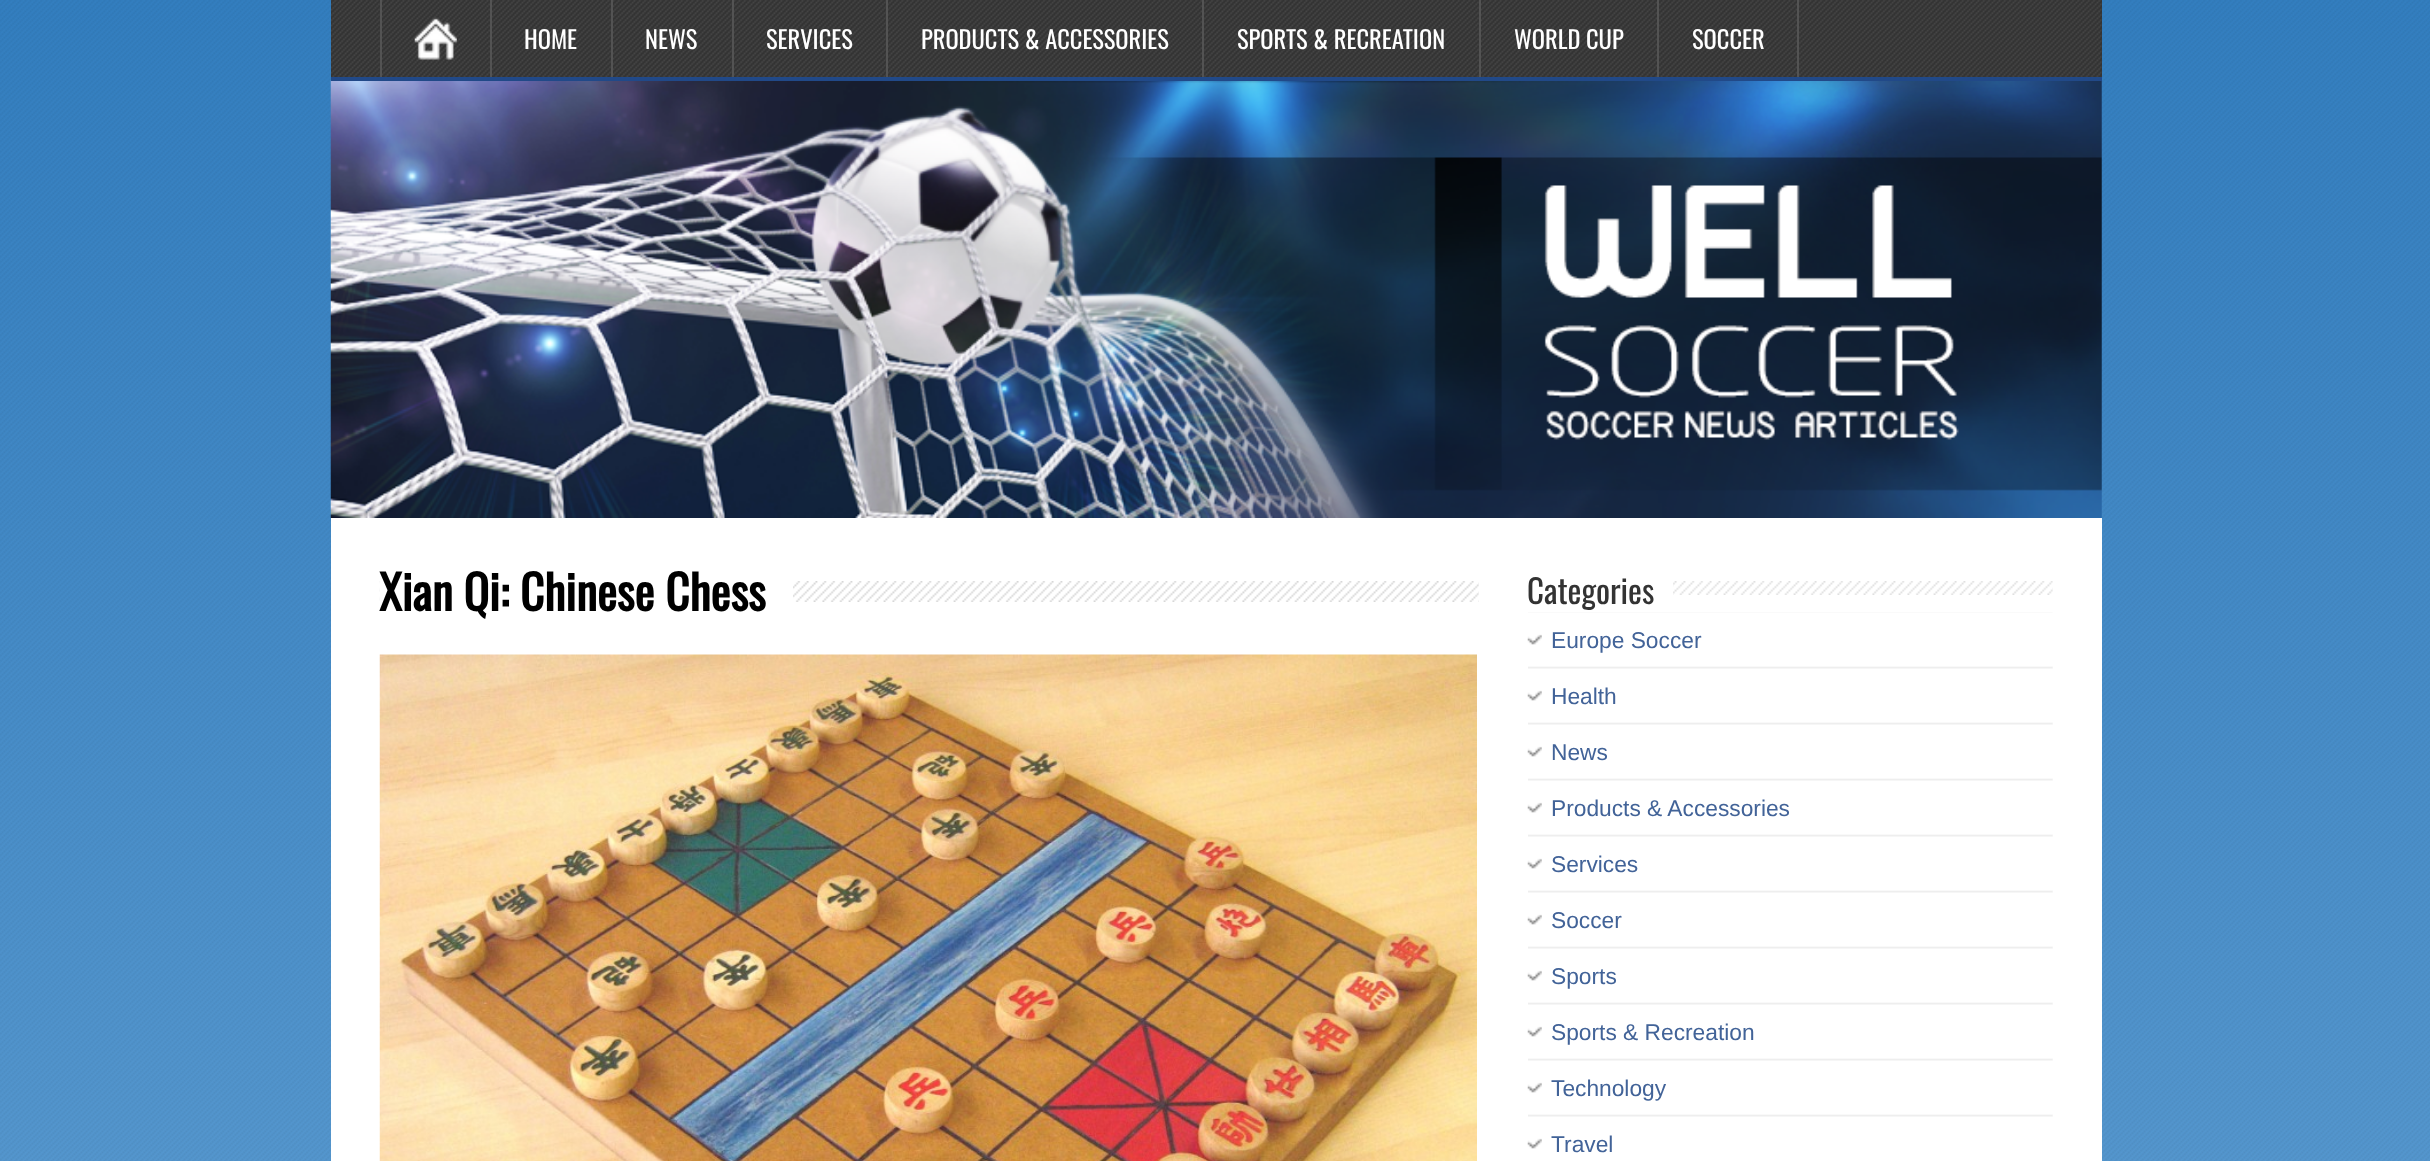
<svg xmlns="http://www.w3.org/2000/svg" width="2430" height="1161">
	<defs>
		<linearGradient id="g1" gradientUnits="userSpaceOnUse" x1="1215" y1="0" x2="1215" y2="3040"><stop offset="0" stop-color="#337EBF" /><stop offset="1" stop-color="#89BDE5" /></linearGradient>
	</defs>
	<rect width="100%" height="100%" fill="#FFFFFF" />
	<rect x="0" y="0" width="2430" height="1161" fill="url(#g1)" />
	<image x="0" y="0" width="2430" height="1161" href="assets/img1.png" />
	<rect x="331" y="0" width="1771" height="77" fill="#333333" />
	<image x="330" y="80" width="1772" height="438" href="assets/img4.png" />
	<rect x="331" y="77" width="1771" height="4" fill="#214988" />
	<image x="331" y="0" width="1771" height="77" href="assets/img2.png" />
	<image x="414" y="17" width="43" height="43" href="assets/img3.png" />
	<rect x="490" y="0" width="2" height="77" fill="#535353" />
	<rect x="380" y="0" width="2" height="77" fill="#535353" />
	<rect x="611" y="0" width="2" height="77" fill="#535353" />
	<text x="524" y="49" font-family="Oswald" font-size="24.5" fill="#FFFFFF">HOME</text>
	<rect x="732" y="0" width="2" height="77" fill="#535353" />
	<text x="645" y="49" font-family="Oswald" font-size="24.5" fill="#FFFFFF">NEWS</text>
	<rect x="886" y="0" width="2" height="77" fill="#535353" />
	<text x="766" y="49" font-family="Oswald" font-size="24.5" fill="#FFFFFF">SERVICES</text>
	<rect x="1202" y="0" width="2" height="77" fill="#535353" />
	<text x="921" y="49" font-family="Oswald" font-size="24.5" fill="#FFFFFF">PRODUCTS &amp; ACCESSORIES</text>
	<rect x="1479" y="0" width="2" height="77" fill="#535353" />
	<text x="1237" y="49" font-family="Oswald" font-size="24.5" fill="#FFFFFF">SPORTS &amp; RECREATION</text>
	<rect x="1657" y="0" width="2" height="77" fill="#535353" />
	<text x="1514" y="49" font-family="Oswald" font-size="24.5" fill="#FFFFFF">WORLD CUP</text>
	<rect x="1797" y="0" width="2" height="77" fill="#535353" />
	<text x="1692" y="49" font-family="Oswald" font-size="24.5" fill="#FFFFFF">SOCCER</text>
	<rect x="331" y="518" width="1771" height="643" fill="#FFFFFF" />
	<image x="379" y="581" width="1100" height="21" href="assets/img5.png" />
	<rect x="380" y="581" width="413" height="21" fill="#FFFFFF" />
	<text x="379" y="611" font-family="Oswald" font-size="47.25" font-weight="700" fill="#000000">Xian Qi: Chinese Chess</text>
	<image x="379" y="654" width="1098" height="507" href="assets/img6.png" />
	<image x="1527" y="581" width="526" height="14" href="assets/img7.png" />
	<rect x="1528" y="581" width="145" height="14" fill="#FFFFFF" />
	<text x="1527" y="604" font-family="Oswald" font-size="33" fill="#333333">Categories</text>
	<image x="1528" y="612" width="525" height="505" href="assets/img8.png" />
	<image x="1527" y="634" width="15" height="11" href="assets/img9.png" />
	<text x="1551" y="648" font-family="Liberation Sans" font-size="22.75" fill="#426398">Europe Soccer</text>
	<image x="1527" y="690" width="15" height="11" href="assets/img9.png" />
	<text x="1551" y="704" font-family="Liberation Sans" font-size="22.75" fill="#426398">Health</text>
	<image x="1527" y="746" width="15" height="11" href="assets/img9.png" />
	<text x="1551" y="760" font-family="Liberation Sans" font-size="22.75" fill="#426398">News</text>
	<image x="1527" y="802" width="15" height="11" href="assets/img9.png" />
	<text x="1551" y="816" font-family="Liberation Sans" font-size="22.75" fill="#426398">Products &amp; Accessories</text>
	<image x="1527" y="858" width="15" height="11" href="assets/img9.png" />
	<text x="1551" y="872" font-family="Liberation Sans" font-size="22.75" fill="#426398">Services</text>
	<image x="1527" y="914" width="15" height="11" href="assets/img9.png" />
	<text x="1551" y="928" font-family="Liberation Sans" font-size="22.75" fill="#426398">Soccer</text>
	<image x="1527" y="970" width="15" height="11" href="assets/img9.png" />
	<text x="1551" y="984" font-family="Liberation Sans" font-size="22.75" fill="#426398">Sports</text>
	<image x="1527" y="1026" width="15" height="11" href="assets/img9.png" />
	<text x="1551" y="1040" font-family="Liberation Sans" font-size="22.75" fill="#426398">Sports &amp; Recreation</text>
	<image x="1527" y="1082" width="15" height="11" href="assets/img9.png" />
	<text x="1551" y="1096" font-family="Liberation Sans" font-size="22.75" fill="#426398">Technology</text>
	<image x="1527" y="1138" width="15" height="11" href="assets/img9.png" />
	<text x="1551" y="1152" font-family="Liberation Sans" font-size="22.75" fill="#426398">Travel</text>
</svg>
